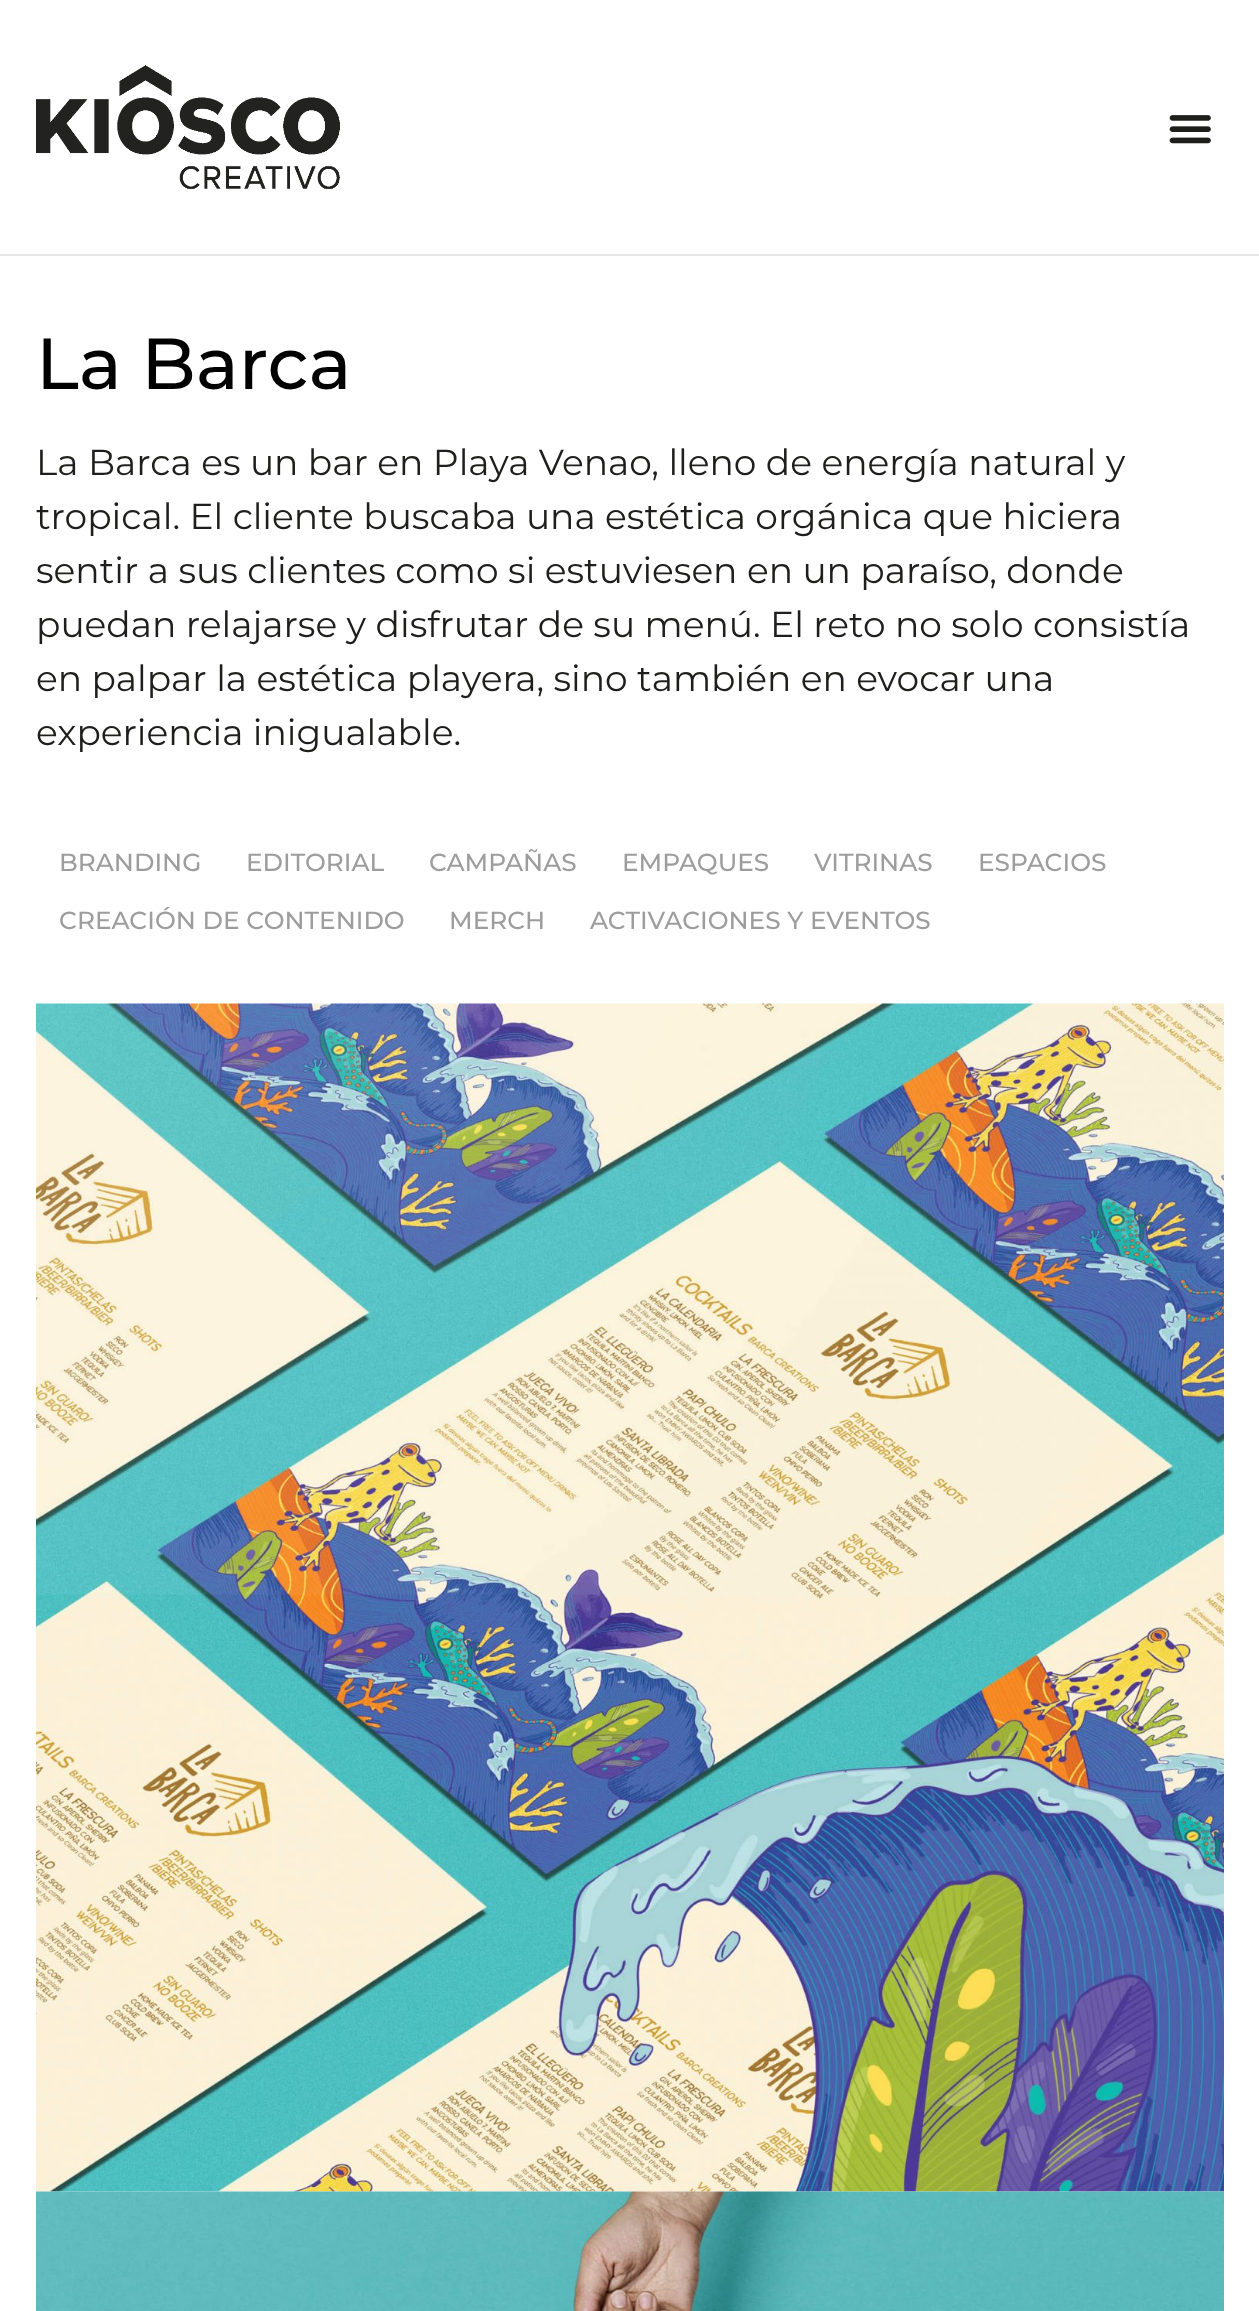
<svg xmlns="http://www.w3.org/2000/svg" width="1259" height="2311">
	<rect width="100%" height="100%" fill="#FFFFFF" />
	<rect x="0" y="254" width="1259" height="2" fill="#E7E7E7" />
	<image x="36" y="65" width="304" height="124" href="assets/img1.png" />
	<image x="1169" y="115" width="42" height="29" href="assets/img2.png" />
	<text x="36" y="389" font-family="Montserrat" font-size="72" font-weight="100" fill="#000000">La Barca</text>
	<g font-family="'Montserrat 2'" font-size="36" font-weight="100" fill="#1E1E1C">
		<text x="36" y="475">La Barca es un bar en Playa Venao, lleno de energía natural y</text>
		<text x="36" y="529">tropical. El cliente buscaba una estética orgánica que hiciera</text>
		<text x="36" y="583">sentir a sus clientes como si estuviesen en un paraíso, donde</text>
		<text x="36" y="637">puedan relajarse y disfrutar de su menú. El reto no solo consistía</text>
		<text x="36" y="691">en palpar la estética playera, sino también en evocar una</text>
		<text x="36" y="745">experiencia inigualable.</text>
	</g>
	<g font-family="Montserrat" font-size="24.75" font-weight="100" fill="#9D9D9D">
		<text x="59" y="871">BRANDING</text>
		<text x="246" y="871">EDITORIAL</text>
		<text x="429" y="871">CAMPAÑAS</text>
		<text x="622" y="871">EMPAQUES</text>
		<text x="814" y="871">VITRINAS</text>
		<text x="978" y="871">ESPACIOS</text>
		<text x="59" y="929">CREACIÓN DE CONTENIDO</text>
		<text x="449" y="929">MERCH</text>
		<text x="590" y="929">ACTIVACIONES Y EVENTOS</text>
	</g>
	<image x="36" y="1003" width="1188" height="1189" href="assets/img3.png" />
	<image x="36" y="2191" width="1188" height="120" href="assets/img4.png" />
</svg>
